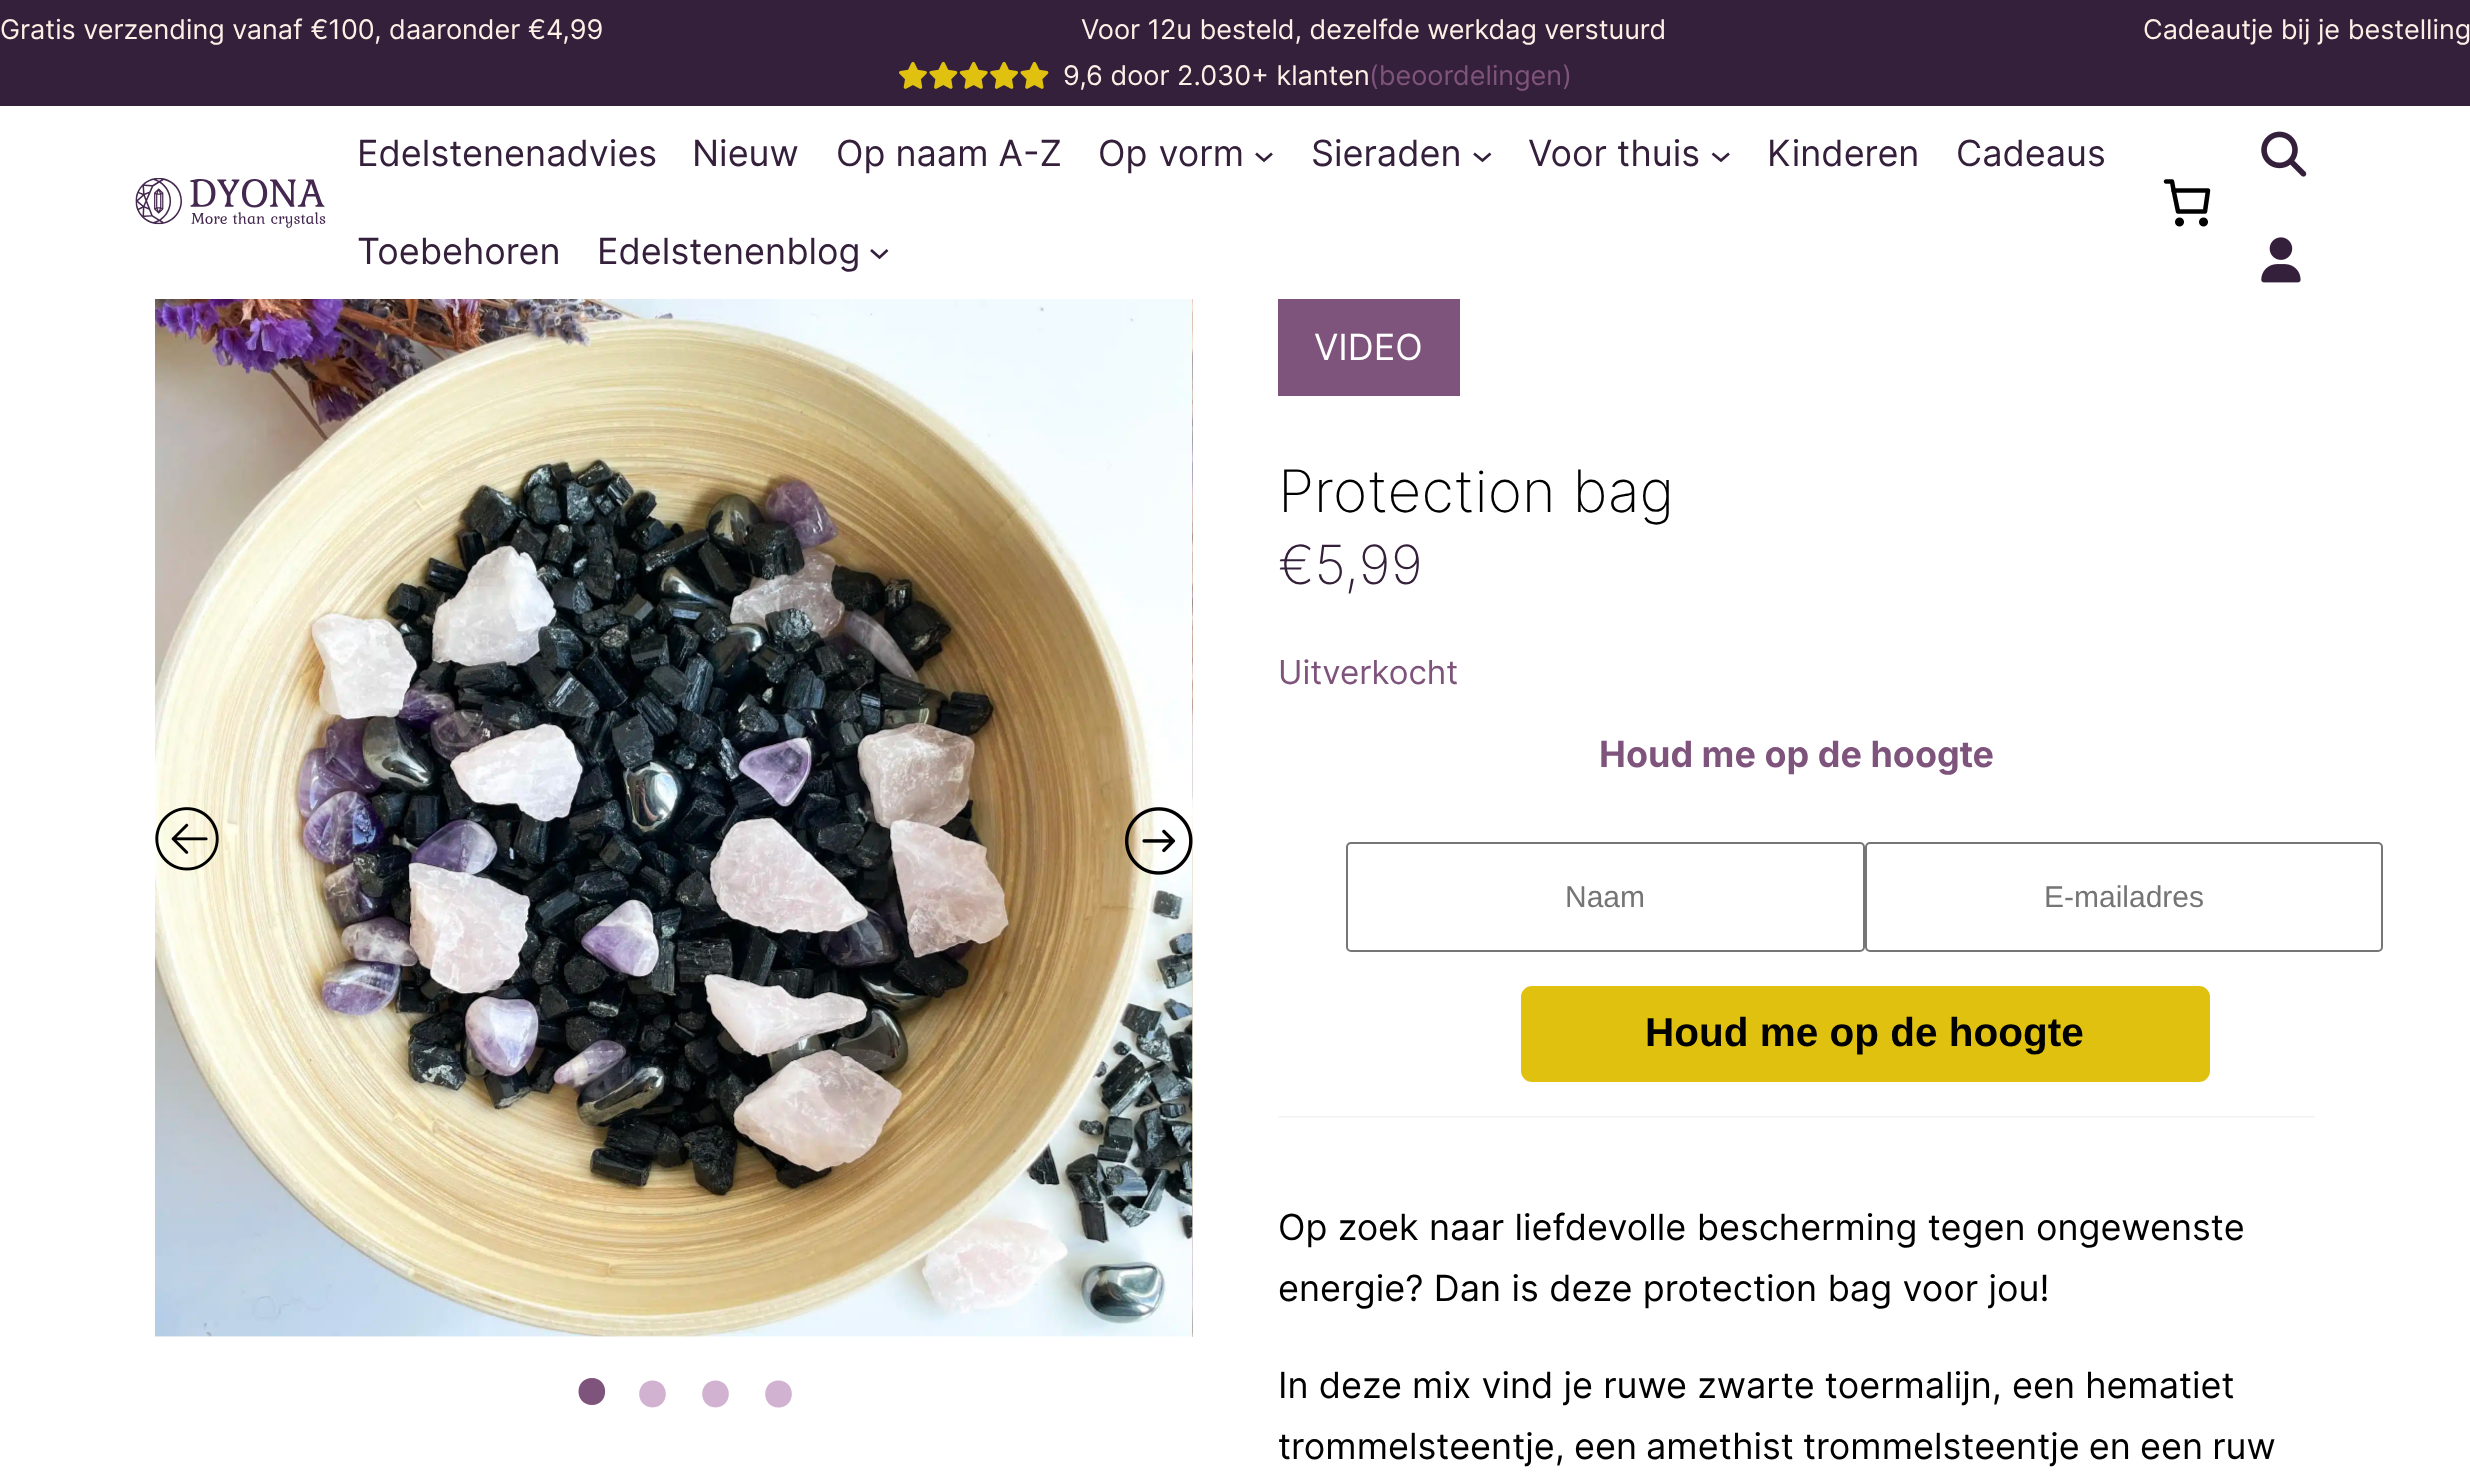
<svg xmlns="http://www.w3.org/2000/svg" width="2470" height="1477">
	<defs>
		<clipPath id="clip1"><rect x="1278" y="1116" width="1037" height="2" /></clipPath>
	</defs>
	<rect width="100%" height="100%" fill="#FFFFFF" />
	<rect x="0" y="0" width="2470" height="106" fill="#35203B" />
	<g font-family="Inter" font-size="27" fill="#FFEFE6">
		<text x="0" y="39">Gratis verzending vanaf €100, daaronder €4,99</text>
		<text x="1081" y="39" word-spacing="-0.25">Voor 12u besteld, dezelfde werkdag verstuurd</text>
		<text x="2143" y="39">Cadeautje bij je bestelling</text>
	</g>
	<image x="899" y="61" width="150" height="28" href="assets/img1.png" />
	<text x="1063" y="85" font-family="Inter" font-size="27" fill="#FFEFE6">9,6 door 2.030+ klanten</text>
	<text x="1369" y="85" font-family="Inter" font-size="27" fill="#7F547C">(beoordelingen)</text>
	<image x="135" y="178" width="191" height="50" href="assets/img2.png" />
	<g font-family="Inter" font-size="36" fill="#35203B">
		<text x="357" y="166">Edelstenenadvies</text>
		<text x="692" y="166">Nieuw</text>
		<text x="836" y="166">Op naam A-Z</text>
		<text x="1098" y="166" word-spacing="1">Op vorm</text>
	</g>
	<path d="M1256 153.5L1264 160.5L1272 153.5" fill="none" stroke="#35203B" stroke-width="2.7" />
	<text x="1311" y="166" font-family="Inter" font-size="36" fill="#35203B">Sieraden</text>
	<path d="M1474 153.5L1482.5 160.5L1490.5 153.5" fill="none" stroke="#35203B" stroke-width="2.7" />
	<text x="1528" y="166" font-family="Inter" font-size="36" fill="#35203B">Voor thuis</text>
	<path d="M1712.5 153.5L1721 160.5L1729 153.5" fill="none" stroke="#35203B" stroke-width="2.7" />
	<g font-family="Inter" font-size="36" fill="#35203B">
		<text x="1767" y="166">Kinderen</text>
		<text x="1956" y="166">Cadeaus</text>
		<text x="357" y="264">Toebehoren</text>
		<text x="597" y="264">Edelstenenblog</text>
	</g>
	<path d="M871 250L879.5 257.5L887.5 250" fill="none" stroke="#35203B" stroke-width="2.7" />
	<image x="2163" y="179" width="48" height="48" href="assets/img3.png" />
	<image x="2261" y="131" width="46" height="46" href="assets/img4.png" />
	<image x="2261" y="237" width="40" height="46" href="assets/img5.png" />
	<image x="155" y="299" width="1038" height="1038" href="assets/img6.png" />
	<image x="1192" y="299" width="1" height="1038" href="assets/img7.png" />
	<image x="155" y="807" width="64" height="64" href="assets/img8.png" />
	<image x="1125" y="807" width="68" height="68" href="assets/img9.png" />
	<path d="M592 1405C609.5 1405 609.5 1378 592 1378C574 1378 574 1405 592 1405Z" fill="#7F547C" />
	<path d="M652.5 1407.5C670.5 1407 670 1380.5 652.5 1380.5C635 1380.5 634.5 1407 652.5 1407.5Z" fill="#D1B2D0" />
	<path d="M715.5 1407.5C733.5 1407 733 1380.5 715.5 1380.5C698 1380.5 697.5 1407 715.5 1407.5Z" fill="#D1B2D0" />
	<path d="M778.5 1407.5C796.5 1407 796 1380.5 778.5 1380.5C761 1380.5 760.5 1407 778.5 1407.5Z" fill="#D1B2D0" />
	<rect x="1278" y="299" width="182" height="97" fill="#7F547C" />
	<text x="1314" y="360" font-family="Inter" font-size="36" fill="#FFFFFF">VIDEO</text>
	<text x="1278" y="512" font-family="Inter" font-size="58.5" font-weight="200" fill="#000000">Protection bag</text>
	<text x="1278" y="584" font-family="Inter" font-size="54" font-weight="200" fill="#35203B">€5,99</text>
	<text x="1278" y="684" font-family="Inter" font-size="33" fill="#7F547C">Uitverkocht</text>
	<g clip-path="url(#clip1)">
		<rect x="1278" y="704" width="1037" height="414" fill="#000000" fill-opacity="0.05" filter="blur(1px)" />
	</g>
	<text x="1599" y="767" font-family="Inter" font-size="36" font-weight="700" fill="#7F547C">Houd me op de hoogte</text>
	<rect x="1347" y="843" width="517" height="108" rx="4" fill="none" stroke="#767676" stroke-width="2" />
	<text x="1565" y="907" font-family="Liberation Sans" font-size="30" fill="#757575">Naam</text>
	<rect x="1866" y="843" width="516" height="108" rx="4" fill="#FFFFFF" stroke="#767676" stroke-width="2" />
	<text x="2044" y="907" font-family="Liberation Sans" font-size="30" fill="#757575">E-mailadres</text>
	<rect x="1522" y="987" width="687" height="94" rx="10" fill="#E0C110" stroke="#E0C110" stroke-width="2" />
	<text x="1645" y="1046" font-family="Liberation Sans" font-size="40.5" font-weight="700" fill="#000000">Houd me op de hoogte</text>
	<g font-family="Inter" font-size="36" fill="#000000">
		<text x="1278" y="1240" word-spacing="0.25">Op zoek naar liefdevolle bescherming tegen ongewenste</text>
		<text x="1278" y="1301" word-spacing="0.25">energie? Dan is deze protection bag voor jou!</text>
		<text x="1278" y="1398">In deze mix vind je ruwe zwarte toermalijn, een hematiet</text>
		<text x="1278" y="1459" word-spacing="-1">trommelsteentje, een amethist trommelsteentje en een ruw</text>
	</g>
</svg>
